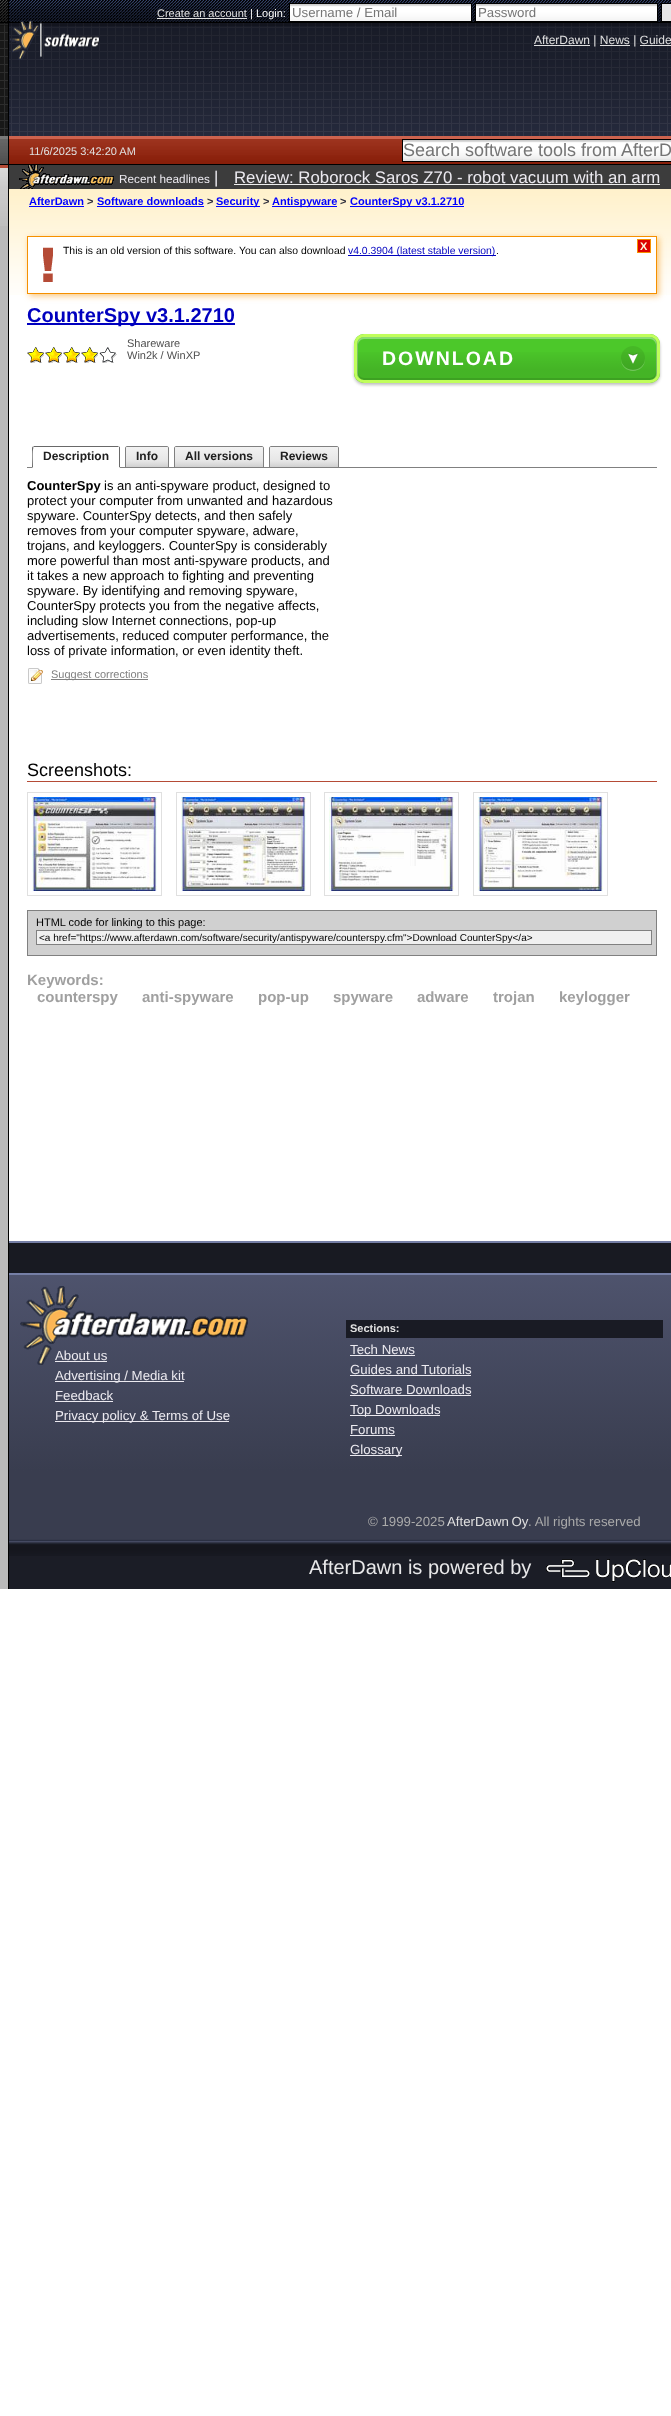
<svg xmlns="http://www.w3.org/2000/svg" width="671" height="2416">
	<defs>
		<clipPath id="clip1"><rect x="354" y="334" width="306" height="49" rx="10" /></clipPath>
		<linearGradient id="g1" gradientUnits="userSpaceOnUse" x1="507" y1="337" x2="507" y2="380"><stop offset="0" stop-color="#000000" stop-opacity="0" /><stop offset="0.25" stop-color="#000000" stop-opacity="0" /><stop offset="0.75" stop-color="#000000" stop-opacity="0.1" /><stop offset="1" stop-color="#000000" stop-opacity="0.1" /></linearGradient>
		<linearGradient id="g2" gradientUnits="userSpaceOnUse" x1="147" y1="447" x2="147" y2="467"><stop offset="0" stop-color="#F2F2F2" /><stop offset="0.7" stop-color="#E6E6E6" /><stop offset="1" stop-color="#D0D0D0" /></linearGradient>
		<linearGradient id="g3" gradientUnits="userSpaceOnUse" x1="219" y1="447" x2="219" y2="467"><stop offset="0" stop-color="#F2F2F2" /><stop offset="0.7" stop-color="#E6E6E6" /><stop offset="1" stop-color="#D0D0D0" /></linearGradient>
		<linearGradient id="g4" gradientUnits="userSpaceOnUse" x1="304" y1="447" x2="304" y2="467"><stop offset="0" stop-color="#F2F2F2" /><stop offset="0.7" stop-color="#E6E6E6" /><stop offset="1" stop-color="#D0D0D0" /></linearGradient>
		<linearGradient id="g5" gradientUnits="userSpaceOnUse" x1="504" y1="1241" x2="504" y2="1589"><stop offset="0" stop-color="#525772" /><stop offset="0.66" stop-color="#393D4F" /><stop offset="1" stop-color="#393D4F" /></linearGradient>
	</defs>
	<rect width="100%" height="100%" fill="#FFFFFF" />
	<image x="0" y="0" width="8" height="23" href="assets/img1.png" />
	<image x="9" y="0" width="662" height="23" href="assets/img2.png" />
	<rect x="8" y="0" width="1" height="136" fill="#000000" />
	<text x="157" y="17" font-family="Liberation Sans" font-size="11" fill="#E0E0E0">Create an account</text>
	<rect x="157" y="18" width="90" height="1" fill="#E0E0E0" />
	<text x="250" y="17" font-family="Liberation Sans" font-size="11" fill="#FFFFFF">| Login:</text>
	<image x="290" y="4" width="181" height="17" href="assets/img3.png" />
	<rect x="289.5" y="3.5" width="182" height="18" fill="none" stroke="#000000" />
	<text x="292" y="17" font-family="Liberation Sans" font-size="13.25" fill="#757575">Username / Email</text>
	<image x="476" y="4" width="181" height="17" href="assets/img3.png" />
	<rect x="475.5" y="3.5" width="182" height="18" fill="none" stroke="#000000" />
	<text x="478" y="17" font-family="Liberation Sans" font-size="13.25" fill="#757575">Password</text>
	<rect x="661.5" y="3.5" width="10" height="18" fill="#E6E6E6" stroke="#000000" />
	<rect x="0" y="23" width="8" height="113" fill="#181818" />
	<image x="0" y="23" width="8" height="113" href="assets/img4.png" />
	<rect x="9" y="23" width="662" height="113" fill="#31374F" />
	<image x="9" y="23" width="662" height="113" href="assets/img5.png" />
	<image x="9" y="23" width="662" height="113" href="assets/img7.png" />
	<rect x="0" y="23" width="671" height="3" fill="#000000" fill-opacity="0.2" />
	<image x="10" y="21" width="90" height="39" href="assets/img6.png" />
	<rect x="534" y="45" width="56" height="1" fill="#E0E0E0" />
	<text x="534" y="44" font-family="Liberation Sans" font-size="12" fill="#E0E0E0">AfterDawn | News | Guide</text>
	<rect x="600" y="45" width="30" height="1" fill="#E0E0E0" />
	<rect x="640" y="45" width="31" height="1" fill="#E0E0E0" />
	<image x="0" y="136" width="8" height="29" href="assets/img8.png" />
	<image x="9" y="136" width="662" height="28" href="assets/img9.png" />
	<rect x="8" y="164" width="663" height="1" fill="#000000" />
	<rect x="8" y="136" width="1" height="1453" fill="#000000" />
	<text x="29" y="155" font-family="Liberation Sans" font-size="11" fill="#E0E0E0">11/6/2025 3:42:20 AM</text>
	<rect x="403" y="159" width="268" height="2" fill="#E6E6E6" />
	<image x="403" y="140" width="268" height="19" href="assets/img10.png" />
	<rect x="402.5" y="139.5" width="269" height="22" fill="none" stroke="#000000" />
	<text x="403" y="156" font-family="Liberation Sans" font-size="18" fill="#757575">Search software tools from AfterD</text>
	<rect x="0" y="226" width="8" height="1363" fill="#BABABA" />
	<image x="0" y="165" width="8" height="61" href="assets/img11.png" />
	<image x="9" y="189" width="662" height="106" href="assets/img12.png" />
	<rect x="9" y="165" width="662" height="24" fill="#3C3C3C" />
	<image x="19" y="165" width="95" height="24" href="assets/img13.png" />
	<text x="119" y="183" font-family="Liberation Sans" font-size="11.75" fill="#ECEAF0">Recent headlines</text>
	<g font-family="Liberation Sans" font-size="16.8" fill="#ECEAF0">
		<text x="214" y="183">|</text>
		<text x="234" y="183">Review: Roborock Saros Z70 - robot vacuum with an arm</text>
	</g>
	<rect x="234" y="184" width="426" height="1" fill="#EEEEEE" />
	<text x="29" y="205" font-family="Liberation Sans" font-size="11" font-weight="700" fill="#0000FF">AfterDawn</text>
	<rect x="29" y="206" width="55" height="1" fill="#0000FF" />
	<text x="87" y="205" font-family="Liberation Sans" font-size="11" font-weight="700" fill="#30303D">&gt;</text>
	<text x="97" y="205" font-family="Liberation Sans" font-size="11" font-weight="700" fill="#0000FF">Software downloads</text>
	<rect x="97" y="206" width="107" height="1" fill="#0000FF" />
	<text x="207" y="205" font-family="Liberation Sans" font-size="11" font-weight="700" fill="#30303D">&gt;</text>
	<rect x="216" y="206" width="44" height="1" fill="#0000FF" />
	<text x="216" y="205" font-family="Liberation Sans" font-size="11" font-weight="700" fill="#0000FF">Security</text>
	<text x="263" y="205" font-family="Liberation Sans" font-size="11" font-weight="700" fill="#30303D">&gt;</text>
	<rect x="272" y="206" width="65" height="1" fill="#0000FF" />
	<text x="272" y="205" font-family="Liberation Sans" font-size="11" font-weight="700" fill="#0000FF">Antispyware</text>
	<text x="340" y="205" font-family="Liberation Sans" font-size="11" font-weight="700" fill="#30303D">&gt;</text>
	<rect x="350" y="206" width="114" height="1" fill="#0000FF" />
	<text x="350" y="205" font-family="Liberation Sans" font-size="11" font-weight="700" fill="#0000FF">CounterSpy v3.1.2710</text>
	<rect x="29" y="238" width="630" height="58" fill="#F59000" fill-opacity="0.5" filter="blur(3px)" />
	<rect x="27.5" y="236.5" width="629" height="57" fill="#FFFFFF" stroke="#F59000" />
	<image x="43" y="247" width="10" height="35" href="assets/img14.png" />
	<text x="63" y="254" font-family="Liberation Sans" font-size="10.4" fill="#000000">This is an old version of this software. You can also download</text>
	<rect x="348" y="255" width="148" height="1" fill="#0000BF" />
	<text x="348" y="254" font-family="Liberation Sans" font-size="10.4" fill="#0000BF">v4.0.3904 (latest stable version)</text>
	<text x="496" y="254" font-family="Liberation Sans" font-size="10.4" fill="#000000">.</text>
	<rect x="637.5" y="239.5" width="13" height="13" fill="#DD0000" stroke="#F59000" />
	<text x="640" y="250" font-family="Liberation Sans" font-size="11" font-weight="700" fill="#FDF8E0">X</text>
	<rect x="27" y="323" width="208" height="2" fill="#0000BF" />
	<text x="27" y="322" font-family="Liberation Sans" font-size="20" font-weight="700" fill="#0000BF">CounterSpy v3.1.2710</text>
	<image x="27" y="347" width="17" height="16" href="assets/img15.png" />
	<image x="45" y="347" width="17" height="16" href="assets/img15.png" />
	<image x="63" y="347" width="17" height="16" href="assets/img15.png" />
	<image x="81" y="347" width="17" height="16" href="assets/img15.png" />
	<image x="99" y="347" width="18" height="16" href="assets/img16.png" />
	<g font-family="Liberation Sans" font-size="11" fill="#505050">
		<text x="127" y="347">Shareware</text>
		<text x="127" y="359">Win2k / WinXP</text>
	</g>
	<rect x="354" y="336" width="306" height="49" rx="10" fill="#000000" fill-opacity="0.25" filter="blur(1.5px)" />
	<rect x="354" y="334" width="306" height="49" rx="10" fill="#4CC82A" />
	<g clip-path="url(#clip1)">
		<rect x="354" y="352" width="306" height="28" fill="url(#g1)" />
	</g>
	<path d="M364 339H650C653 339 656 342 656 345V374C656 377 653 380 650 380C654 380 657 377 657 373V344C657 340 654 337 650 337H364C360 337 357 340 357 344V373C357 377 360 380 364 380C361 380 358 377 358 374V345C358 342 361 339 364 339Z" fill="#FFFFFF" fill-opacity="0.35" />
	<path d="M364 337C360 337 357 340 357 344V373C357 377 360 380 364 380H650C654 380 657 377 657 373V344C657 340 654 337 650 337C653 337 656 340 656 343V372C656 375 653 378 650 378H364C361 378 358 375 358 372V343C358 340 361 337 364 337Z" fill="#000000" fill-opacity="0.1" />
	<rect x="355.5" y="335.5" width="303" height="46" rx="8.5" fill="none" stroke="#C0FE5B" stroke-width="3" />
	<text x="382" y="365" font-family="Liberation Sans" font-size="19.5" font-weight="700" letter-spacing="2" fill="#FFFFFF">DOWNLOAD</text>
	<path d="M645 358.5C644.5 373.5 621.5 373.5 621 358.5C620.5 375 645.5 375 645 358.5Z" fill="#FFFFFF" fill-opacity="0.25" />
	<circle cx="633" cy="358" r="12" fill="#000000" fill-opacity="0.08" />
	<image x="628" y="353" width="10" height="11" href="assets/img17.png" />
	<rect x="27" y="467" width="630" height="1" fill="#808080" />
	<path d="M34 446H118C119 446 120 447 120 448V468H32V448C32 447 33 446 34 446Z" fill="#FFFFFF" />
	<path d="M34 446L33 447H119L118 446Z" fill="#696969" />
	<path d="M120 468V448C120 447.5 120 447 119.5 446.5L119 447V467Z" fill="#696969" />
	<path d="M120 468L119 467H33L32 468Z" fill="#FFFFFF" />
	<path d="M32 468L33 467C33 462 32 451 33.5 447.5L32.5 446.5L32 448Z" fill="#696969" />
	<text x="43" y="460" font-family="Liberation Sans" font-size="12" font-weight="700" fill="#202020">Description</text>
	<rect x="125" y="447" width="44" height="20" fill="url(#g2)" />
	<path d="M127 446.5H167C168 446.5 168.5 447 168.5 448V467.5H125.5V448C125.5 447 126 446.5 127 446.5Z" fill="none" stroke="#808080" />
	<text x="136" y="460" font-family="Liberation Sans" font-size="12" font-weight="700" fill="#202020">Info</text>
	<rect x="174" y="447" width="90" height="20" fill="url(#g3)" />
	<path d="M176 446.5H262C263 446.5 263.5 447 263.5 448V467.5H174.5V448C174.5 447 175 446.5 176 446.5Z" fill="none" stroke="#808080" />
	<text x="185" y="460" font-family="Liberation Sans" font-size="12" font-weight="700" fill="#202020">All versions</text>
	<rect x="269" y="447" width="70" height="20" fill="url(#g4)" />
	<path d="M271 446.5H337C338 446.5 338.5 447 338.5 448V467.5H269.5V448C269.5 447 270 446.5 271 446.5Z" fill="none" stroke="#808080" />
	<text x="280" y="460" font-family="Liberation Sans" font-size="12" font-weight="700" fill="#202020">Reviews</text>
	<text x="27" y="490" font-family="Liberation Sans" font-size="13" font-weight="700" fill="#000000">CounterSpy</text>
	<g font-family="Liberation Sans" font-size="13" fill="#000000">
		<text x="104" y="490">is an anti-spyware product, designed to</text>
		<text x="27" y="505">protect your computer from unwanted and hazardous</text>
		<text x="27" y="520">spyware. CounterSpy detects, and then safely</text>
		<text x="27" y="535">removes from your computer spyware, adware,</text>
		<text x="27" y="550">trojans, and keyloggers. CounterSpy is considerably</text>
		<text x="27" y="565">more powerful than most anti-spyware products, and</text>
		<text x="27" y="580">it takes a new approach to fighting and preventing</text>
		<text x="27" y="595">spyware. By identifying and removing spyware,</text>
		<text x="27" y="610">CounterSpy protects you from the negative affects,</text>
		<text x="27" y="625">including slow Internet connections, pop-up</text>
		<text x="27" y="640">advertisements, reduced computer performance, the</text>
		<text x="27" y="655">loss of private information, or even identity theft.</text>
	</g>
	<image x="28" y="668" width="15" height="16" href="assets/img18.png" />
	<rect x="51" y="679" width="97" height="1" fill="#808080" />
	<text x="51" y="678" font-family="Liberation Sans" font-size="11" fill="#808080">Suggest corrections</text>
	<rect x="27" y="781" width="630" height="1" fill="#B54B36" />
	<text x="27" y="776" font-family="Liberation Sans" font-size="18" fill="#000000">Screenshots:</text>
	<rect x="27.5" y="792.5" width="134" height="103" fill="none" stroke="#E0E0E0" />
	<rect x="176.5" y="792.5" width="134" height="103" fill="none" stroke="#E0E0E0" />
	<rect x="324.5" y="792.5" width="134" height="103" fill="none" stroke="#E0E0E0" />
	<rect x="473.5" y="792.5" width="134" height="103" fill="none" stroke="#E0E0E0" />
	<image x="32" y="797" width="125" height="94" href="assets/img19.png" />
	<image x="181" y="797" width="125" height="94" href="assets/img20.png" />
	<image x="329" y="797" width="125" height="94" href="assets/img21.png" />
	<image x="478" y="797" width="125" height="94" href="assets/img22.png" />
	<rect x="27.5" y="910.5" width="629" height="45" fill="#D0D0D0" stroke="#808080" />
	<text x="36" y="926" font-family="Liberation Sans" font-size="11" fill="#000000">HTML code for linking to this page:</text>
	<rect x="36.5" y="930.5" width="615" height="14" fill="#F0F0F0" stroke="#808080" />
	<text x="39" y="941" font-family="Liberation Sans" font-size="10" fill="#000000">&lt;a href="https://www.afterdawn.com/software/security/antispyware/counterspy.cfm"&gt;Download CounterSpy&lt;/a&gt;</text>
	<g font-family="Liberation Sans" font-size="15" font-weight="700" fill="#A0A0A0">
		<text x="27" y="985">Keywords:</text>
		<text x="37" y="1002">counterspy</text>
		<text x="142" y="1002">anti-spyware</text>
		<text x="258" y="1002">pop-up</text>
		<text x="333" y="1002">spyware</text>
		<text x="417" y="1002">adware</text>
		<text x="493" y="1002">trojan</text>
		<text x="559" y="1002">keylogger</text>
	</g>
	<rect x="9" y="1275" width="662" height="264" fill="url(#g5)" />
	<rect x="9" y="1243" width="662" height="30" fill="#181A22" />
	<rect x="9" y="1241" width="662" height="2" fill="#757FA6" />
	<rect x="9" y="1273" width="662" height="2" fill="#757FA6" />
	<image x="20" y="1286" width="228" height="79" href="assets/img23.png" />
	<text x="55" y="1360" font-family="Liberation Sans" font-size="13.25" fill="#ECEAF0">About us</text>
	<rect x="55" y="1361" width="52" height="1" fill="#ECEAF0" />
	<rect x="55" y="1381" width="129" height="1" fill="#ECEAF0" />
	<g font-family="Liberation Sans" font-size="13.25" fill="#ECEAF0">
		<text x="55" y="1380">Advertising / Media kit</text>
		<text x="55" y="1400">Feedback</text>
	</g>
	<rect x="55" y="1401" width="58" height="1" fill="#ECEAF0" />
	<rect x="55" y="1421" width="174" height="1" fill="#ECEAF0" />
	<text x="55" y="1420" font-family="Liberation Sans" font-size="13.25" fill="#ECEAF0">Privacy policy &amp; Terms of Use</text>
	<rect x="346" y="1320" width="317" height="18" fill="#191B24" />
	<text x="350" y="1332" font-family="Liberation Sans" font-size="11" font-weight="700" fill="#E0E0E0">Sections:</text>
	<text x="350" y="1354" font-family="Liberation Sans" font-size="13.25" fill="#ECEAF0">Tech News</text>
	<rect x="350" y="1355" width="65" height="1" fill="#ECEAF0" />
	<text x="350" y="1374" font-family="Liberation Sans" font-size="13.25" fill="#ECEAF0">Guides and Tutorials</text>
	<rect x="350" y="1375" width="121" height="1" fill="#ECEAF0" />
	<text x="350" y="1394" font-family="Liberation Sans" font-size="13.25" fill="#ECEAF0">Software Downloads</text>
	<rect x="350" y="1395" width="121" height="1" fill="#ECEAF0" />
	<rect x="350" y="1415" width="90" height="1" fill="#ECEAF0" />
	<g font-family="Liberation Sans" font-size="13.25" fill="#ECEAF0">
		<text x="350" y="1414">Top Downloads</text>
		<text x="350" y="1434">Forums</text>
	</g>
	<rect x="350" y="1435" width="45" height="1" fill="#ECEAF0" />
	<rect x="350" y="1455" width="52" height="1" fill="#ECEAF0" />
	<text x="350" y="1454" font-family="Liberation Sans" font-size="13.25" fill="#ECEAF0">Glossary</text>
	<text x="368" y="1526" font-family="Liberation Sans" font-size="13.25" fill="#AAAAAA">© 1999-2025</text>
	<text x="447" y="1526" word-spacing="-1" font-family="Liberation Sans" font-size="13.25" fill="#E0E0E0">AfterDawn Oy</text>
	<text x="528" y="1526" font-family="Liberation Sans" font-size="13.25" fill="#AAAAAA">. All rights reserved</text>
	<rect x="9" y="1556" width="662" height="33" fill="#1B1D26" />
	<image x="9" y="1539" width="662" height="17" href="assets/img24.png" />
	<text x="309" y="1574" font-family="Liberation Sans" font-size="20" fill="#E8E8E9">AfterDawn is powered by</text>
	<image x="546" y="1559" width="125" height="23" href="assets/img25.png" />
</svg>
